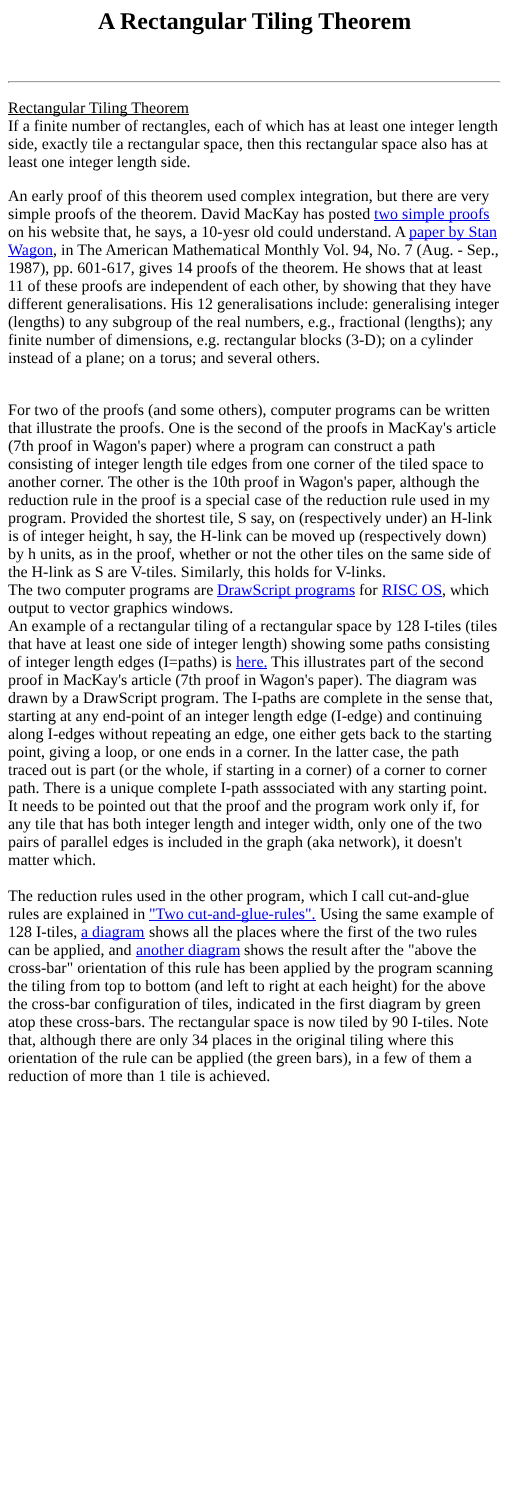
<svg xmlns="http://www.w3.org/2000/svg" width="509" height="1511">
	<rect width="100%" height="100%" fill="#FFFFFF" />
	<text x="98" y="29" font-family="Liberation Serif" font-size="24" font-weight="700" fill="#000000">A Rectangular Tiling Theorem</text>
	<rect x="8" y="81" width="493" height="1" fill="#9F9F9F" />
	<rect x="500" y="81" width="1" height="2" fill="#EEEEEE" />
	<rect x="8" y="82" width="493" height="1" fill="#EEEEEE" />
	<rect x="8" y="81" width="1" height="2" fill="#9F9F9F" />
	<rect x="8" y="114" width="181" height="1" fill="#000000" />
	<g font-family="Liberation Serif" font-size="16" fill="#000000">
		<text x="8" y="113">Rectangular Tiling Theorem</text>
		<text x="8" y="131">If a finite number of rectangles, each of which has at least one integer length</text>
		<text x="8" y="149">side, exactly tile a rectangular space, then this rectangular space also has at</text>
		<text x="8" y="167">least one integer length side.</text>
		<text x="8" y="201">An early proof of this theorem used complex integration, but there are very</text>
		<text x="8" y="219">simple proofs of the theorem. David MacKay has posted</text>
	</g>
	<rect x="374" y="220" width="116" height="1" fill="#0000EE" />
	<text x="374" y="219" font-family="Liberation Serif" font-size="16" fill="#0000EE">two simple proofs</text>
	<text x="8" y="237" font-family="Liberation Serif" font-size="16" fill="#000000">on his website that, he says, a 10-yesr old could understand. A</text>
	<rect x="409" y="238" width="88" height="1" fill="#0000EE" />
	<text x="409" y="237" font-family="Liberation Serif" font-size="16" fill="#0000EE">paper by Stan</text>
	<rect x="8" y="256" width="45" height="1" fill="#0000EE" />
	<text x="8" y="255" font-family="Liberation Serif" font-size="16" fill="#0000EE">Wagon</text>
	<g font-family="Liberation Serif" font-size="16" fill="#000000">
		<text x="53" y="255">, in The American Mathematical Monthly Vol. 94, No. 7 (Aug. - Sep.,</text>
		<text x="8" y="273">1987), pp. 601-617, gives 14 proofs of the theorem. He shows that at least</text>
		<text x="8" y="291">11 of these proofs are independent of each other, by showing that they have</text>
		<text x="8" y="309">different generalisations. His 12 generalisations include: generalising integer</text>
		<text x="8" y="327">(lengths) to any subgroup of the real numbers, e.g., fractional (lengths); any</text>
		<text x="8" y="345">finite number of dimensions, e.g. rectangular blocks (3-D); on a cylinder</text>
		<text x="8" y="363">instead of a plane; on a torus; and several others.</text>
		<text x="8" y="415">For two of the proofs (and some others), computer programs can be written</text>
		<text x="8" y="433">that illustrate the proofs. One is the second of the proofs in MacKay's article</text>
		<text x="8" y="451">(7th proof in Wagon's paper) where a program can construct a path</text>
		<text x="8" y="469">consisting of integer length tile edges from one corner of the tiled space to</text>
		<text x="8" y="487">another corner. The other is the 10th proof in Wagon's paper, although the</text>
		<text x="8" y="505">reduction rule in the proof is a special case of the reduction rule used in my</text>
		<text x="8" y="523">program. Provided the shortest tile, S say, on (respectively under) an H-link</text>
		<text x="8" y="541">is of integer height, h say, the H-link can be moved up (respectively down)</text>
		<text x="8" y="559">by h units, as in the proof, whether or not the other tiles on the same side of</text>
		<text x="8" y="577">the H-link as S are V-tiles. Similarly, this holds for V-links.</text>
		<text x="8" y="595">The two computer programs are</text>
	</g>
	<rect x="217" y="596" width="138" height="1" fill="#0000EE" />
	<text x="217" y="595" font-family="Liberation Serif" font-size="16" fill="#0000EE">DrawScript programs</text>
	<text x="359" y="595" font-family="Liberation Serif" font-size="16" fill="#000000">for</text>
	<text x="382" y="595" font-family="Liberation Serif" font-size="16" fill="#0000EE">RISC OS</text>
	<rect x="382" y="596" width="60" height="1" fill="#0000EE" />
	<g font-family="Liberation Serif" font-size="16" fill="#000000">
		<text x="442" y="595">, which</text>
		<text x="8" y="613">output to vector graphics windows.</text>
		<text x="8" y="631">An example of a rectangular tiling of a rectangular space by 128 I-tiles (tiles</text>
		<text x="8" y="649">that have at least one side of integer length) showing some paths consisting</text>
		<text x="8" y="667">of integer length edges (I=paths) is</text>
	</g>
	<text x="236" y="667" font-family="Liberation Serif" font-size="16" fill="#0000EE">here.</text>
	<rect x="236" y="668" width="31" height="1" fill="#0000EE" />
	<g font-family="Liberation Serif" font-size="16" fill="#000000">
		<text x="271" y="667">This illustrates part of the second</text>
		<text x="8" y="685">proof in MacKay's article (7th proof in Wagon's paper). The diagram was</text>
		<text x="8" y="703">drawn by a DrawScript program. The I-paths are complete in the sense that,</text>
		<text x="8" y="721">starting at any end-point of an integer length edge (I-edge) and continuing</text>
		<text x="8" y="739">along I-edges without repeating an edge, one either gets back to the starting</text>
		<text x="8" y="757">point, giving a loop, or one ends in a corner. In the latter case, the path</text>
		<text x="8" y="775">traced out is part (or the whole, if starting in a corner) of a corner to corner</text>
		<text x="8" y="793">path. There is a unique complete I-path asssociated with any starting point.</text>
		<text x="8" y="811">It needs to be pointed out that the proof and the program work only if, for</text>
		<text x="8" y="829">any tile that has both integer length and integer width, only one of the two</text>
		<text x="8" y="847">pairs of parallel edges is included in the graph (aka network), it doesn't</text>
		<text x="8" y="865">matter which.</text>
		<text x="8" y="901">The reduction rules used in the other program, which I call cut-and-glue</text>
		<text x="8" y="919">rules are explained in</text>
	</g>
	<rect x="149" y="920" width="167" height="1" fill="#0000EE" />
	<text x="149" y="919" font-family="Liberation Serif" font-size="16" fill="#0000EE">"Two cut-and-glue-rules".</text>
	<g font-family="Liberation Serif" font-size="16" fill="#000000">
		<text x="320" y="919">Using the same example of</text>
		<text x="8" y="937">128 I-tiles,</text>
	</g>
	<rect x="81" y="938" width="64" height="1" fill="#0000EE" />
	<text x="81" y="937" font-family="Liberation Serif" font-size="16" fill="#0000EE">a diagram</text>
	<g font-family="Liberation Serif" font-size="16" fill="#000000">
		<text x="149" y="937">shows all the places where the first of the two rules</text>
		<text x="8" y="955">can be applied, and</text>
	</g>
	<rect x="136" y="956" width="104" height="1" fill="#0000EE" />
	<text x="136" y="955" font-family="Liberation Serif" font-size="16" fill="#0000EE">another diagram</text>
	<g font-family="Liberation Serif" font-size="16" fill="#000000">
		<text x="244" y="955">shows the result after the "above the</text>
		<text x="8" y="973">cross-bar" orientation of this rule has been applied by the program scanning</text>
		<text x="8" y="991">the tiling from top to bottom (and left to right at each height) for the above</text>
		<text x="8" y="1009">the cross-bar configuration of tiles, indicated in the first diagram by green</text>
		<text x="8" y="1027">atop these cross-bars. The rectangular space is now tiled by 90 I-tiles. Note</text>
		<text x="8" y="1045">that, although there are only 34 places in the original tiling where this</text>
		<text x="8" y="1063">orientation of the rule can be applied (the green bars), in a few of them a</text>
		<text x="8" y="1081">reduction of more than 1 tile is achieved.</text>
	</g>
</svg>
